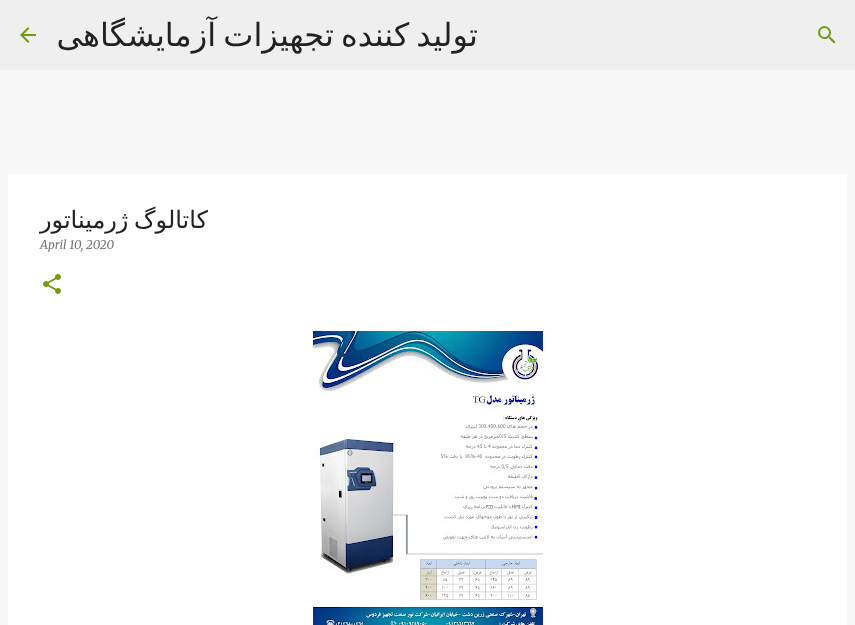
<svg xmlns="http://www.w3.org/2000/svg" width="855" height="625">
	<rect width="100%" height="100%" fill="#F7F7F7" />
	<rect x="0" y="0" width="855" height="70" fill="#EFEFEF" />
	<image x="818" y="26" width="18" height="18" href="assets/img1.png" />
	<text x="478" y="46" word-spacing="-3" font-family="DejaVu Sans" font-size="32" direction="rtl" fill="#212121">تولید کننده تجهیزات آزمایشگاهی</text>
	<image x="20" y="27" width="16" height="16" href="assets/img2.png" />
	<rect x="8" y="174" width="839" height="451" fill="#FFFFFF" />
	<text x="208" y="228" word-spacing="-2" font-family="DejaVu Sans" font-size="24" direction="rtl" fill="#212121">کاتالوگ ژرمیناتور</text>
	<text x="40" y="249" font-family="Merriweather" font-size="12" font-style="italic" fill="#757575">April 10, 2020</text>
	<image x="43" y="274" width="18" height="20" href="assets/img3.png" />
	<image x="313" y="331" width="230" height="294" href="assets/img4.png" />
</svg>
